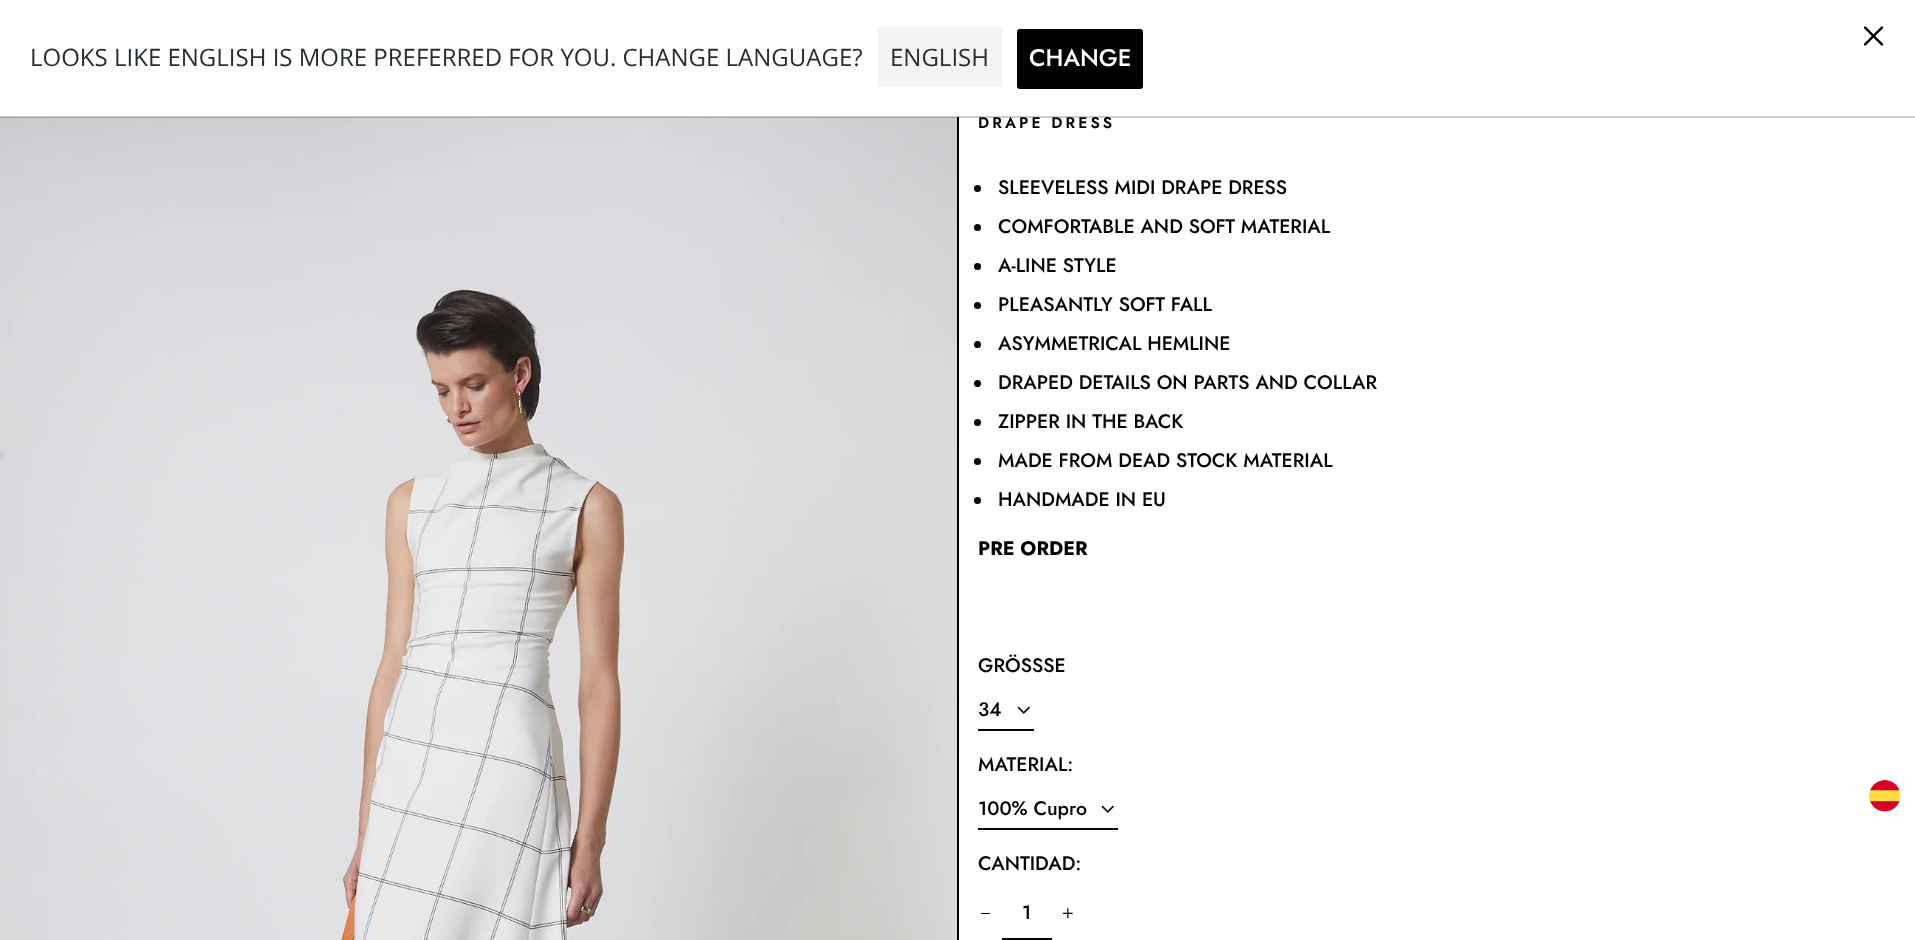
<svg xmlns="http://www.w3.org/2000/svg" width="1915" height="940">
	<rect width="100%" height="100%" fill="#030303" />
	<rect x="959" y="117" width="956" height="823" fill="#FFFFFF" />
	<text x="978" y="128" font-family="Jost" font-size="15.5" font-weight="600" letter-spacing="3.1" fill="#030303">DRAPE DRESS</text>
	<rect x="0" y="0" width="1915" height="117" fill="#FFFFFF" />
	<image x="0" y="117" width="957" height="823" href="assets/img2.png" />
	<rect x="0" y="116" width="1915" height="2" fill="#000000" fill-opacity="0.2" />
	<image x="1863" y="26" width="21" height="20" href="assets/img1.png" />
	<text x="30" y="66" font-family="Open Sans" font-size="24" fill="#272E31">LOOKS LIKE ENGLISH IS MORE PREFERRED FOR YOU. CHANGE LANGUAGE?</text>
	<rect x="878" y="27" width="124" height="60" rx="3" fill="#F4F4F4" />
	<text x="890" y="66" font-family="Open Sans" font-size="24" fill="#272E31">ENGLISH</text>
	<rect x="1017" y="29" width="126" height="60" rx="3" fill="#000000" />
	<text x="1029" y="66" font-family="Jost" font-size="24" font-weight="500" fill="#FFFFFF">CHANGE</text>
	<circle cx="977.5" cy="188.5" r="3.5" fill="#030303" />
	<text x="998" y="194" font-family="Jost" font-size="19.5" font-weight="500" fill="#030303">SLEEVELESS MIDI DRAPE DRESS</text>
	<circle cx="977.5" cy="227.5" r="3.5" fill="#030303" />
	<text x="998" y="233" font-family="Jost" font-size="19.5" font-weight="500" fill="#030303">COMFORTABLE AND SOFT MATERIAL</text>
	<circle cx="977.5" cy="266.5" r="3.5" fill="#030303" />
	<text x="998" y="272" font-family="Jost" font-size="19.5" font-weight="500" fill="#030303">A-LINE STYLE</text>
	<circle cx="977.5" cy="305.5" r="3.5" fill="#030303" />
	<text x="998" y="311" font-family="Jost" font-size="19.5" font-weight="500" fill="#030303">PLEASANTLY SOFT FALL</text>
	<circle cx="977.5" cy="344.5" r="3.5" fill="#030303" />
	<text x="998" y="350" font-family="Jost" font-size="19.5" font-weight="500" fill="#030303">ASYMMETRICAL HEMLINE</text>
	<circle cx="977.5" cy="383.5" r="3.5" fill="#030303" />
	<text x="998" y="389" font-family="Jost" font-size="19.5" font-weight="500" fill="#030303">DRAPED DETAILS ON PARTS AND COLLAR</text>
	<circle cx="977.5" cy="422.5" r="3.5" fill="#030303" />
	<text x="998" y="428" font-family="Jost" font-size="19.5" font-weight="500" fill="#030303">ZIPPER IN THE BACK</text>
	<circle cx="977.5" cy="461.5" r="3.5" fill="#030303" />
	<text x="998" y="467" font-family="Jost" font-size="19.5" font-weight="500" fill="#030303">MADE FROM DEAD STOCK MATERIAL</text>
	<circle cx="977.5" cy="500.5" r="3.5" fill="#030303" />
	<text x="998" y="506" font-family="Jost" font-size="19.5" font-weight="500" fill="#030303">HANDMADE IN EU</text>
	<text x="978" y="555" font-family="Jost" font-size="19.5" font-weight="700" fill="#030303">PRE ORDER</text>
	<text x="978" y="672" font-family="Jost" font-size="19.5" font-weight="500" fill="#030303">GRÖSSSE</text>
	<image x="1017" y="706" width="13" height="8" href="assets/img3.png" />
	<rect x="978" y="729" width="56" height="2" fill="#030303" />
	<g font-family="Jost" font-size="19.5" font-weight="500" fill="#030303">
		<text x="978" y="716">34</text>
		<text x="978" y="771">MATERIAL:</text>
	</g>
	<image x="1101" y="805" width="13" height="8" href="assets/img3.png" />
	<rect x="978" y="828" width="140" height="2" fill="#030303" />
	<g font-family="Jost" font-size="19.5" font-weight="500" fill="#030303">
		<text x="978" y="815">100% Cupro</text>
		<text x="978" y="870">CANTIDAD:</text>
	</g>
	<rect x="981" y="913" width="9" height="1" fill="#030303" />
	<rect x="1002" y="938" width="50" height="2" fill="#030303" />
	<text x="1022" y="919" font-family="Jost" font-size="19.5" font-weight="500" fill="#030303">1</text>
	<image x="1062" y="908" width="11" height="11" href="assets/img4.png" />
	<image x="1869" y="780" width="32" height="32" href="assets/img5.png" />
</svg>
